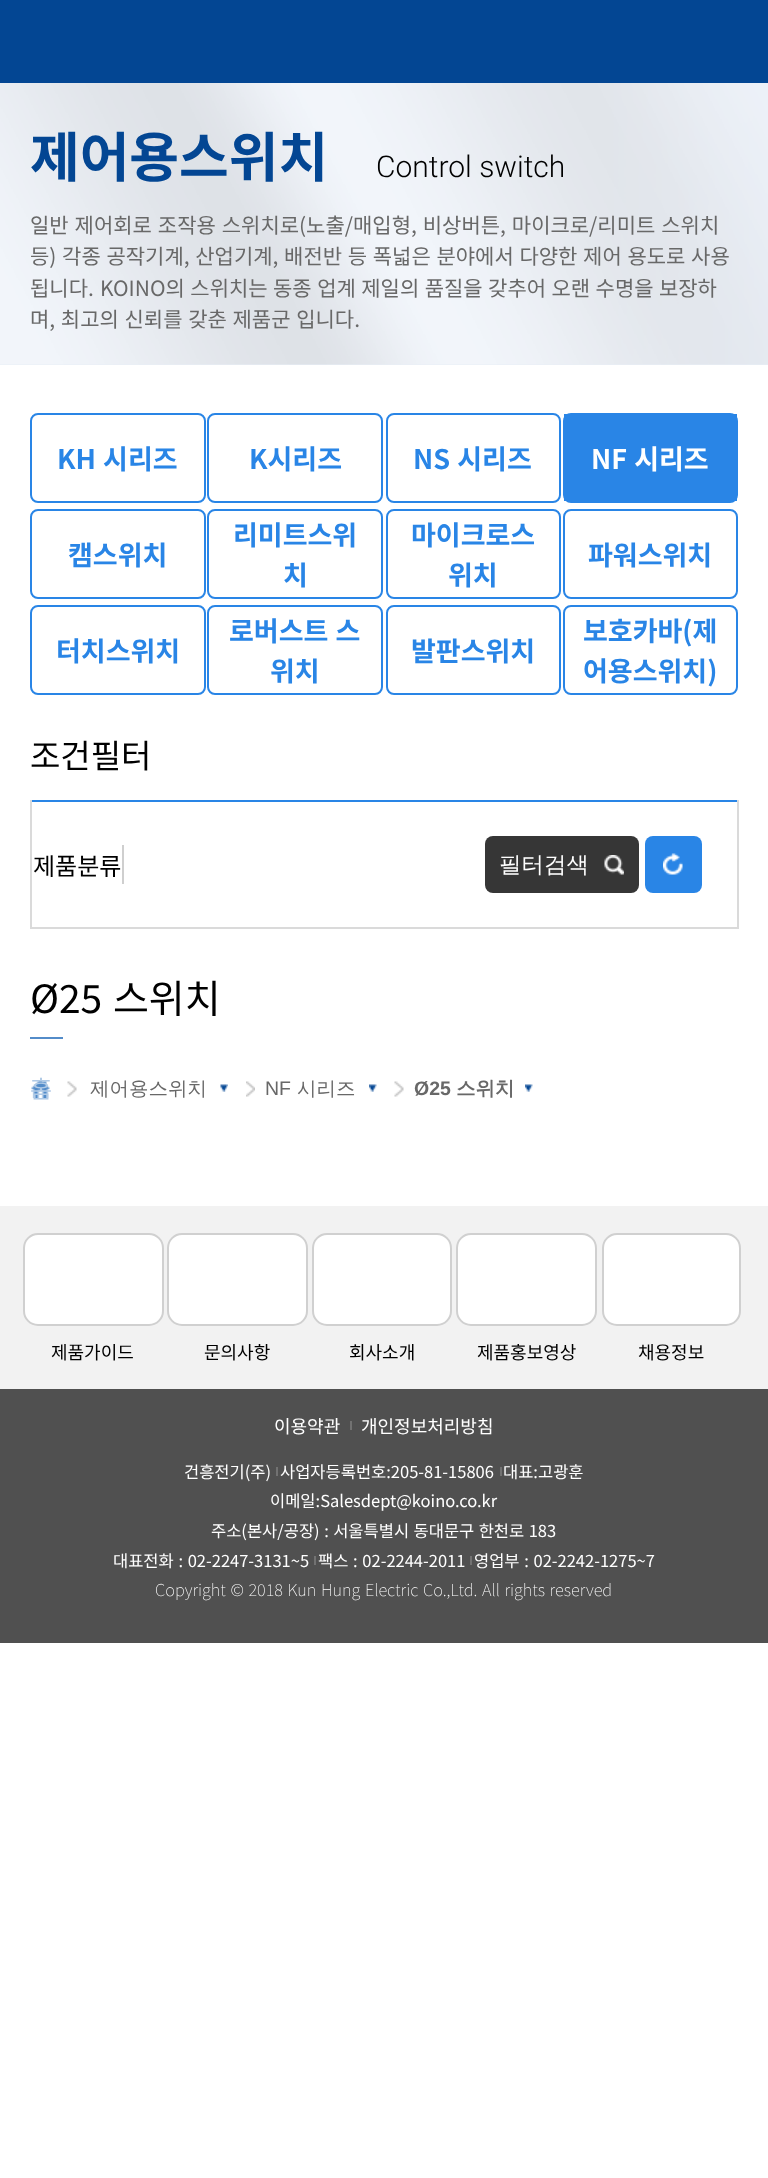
<svg xmlns="http://www.w3.org/2000/svg" width="768" height="2178">
	<rect width="100%" height="100%" fill="#FFFFFF" />
	<rect x="0" y="0" width="768" height="83" fill="#034693" />
	<rect x="0" y="364" width="768" height="1" fill="#E8EEF7" />
	<image x="0" y="83" width="768" height="282" href="assets/img1.png" />
	<text x="30" y="177" font-family="Noto Sans KR" font-size="54" font-weight="700" fill="#034693">제어용스위치</text>
	<text x="376" y="177" font-family="Roboto" font-size="30" font-weight="300" fill="#000000">Control switch</text>
	<g font-family="Noto Sans KR" font-size="21" fill="#686868">
		<text x="30" y="233" word-spacing="1.25">일반 제어회로 조작용 스위치로(노출/매입형, 비상버튼, 마이크로/리미트 스위치</text>
		<text x="30" y="264" word-spacing="1">등) 각종 공작기계, 산업기계, 배전반 등 폭넓은 분야에서 다양한 제어 용도로 사용</text>
		<text x="30" y="296">됩니다.</text>
		<text x="100" y="296" word-spacing="0.75">KOINO의 스위치는 동종 업계 제일의 품질을 갖추어 오랜 수명을 보장하</text>
		<text x="30" y="327" word-spacing="1">며, 최고의 신뢰를 갖춘 제품군 입니다.</text>
	</g>
	<rect x="31" y="414" width="174" height="88" rx="7" fill="none" stroke="#2985E6" stroke-width="2" />
	<text x="57" y="469" word-spacing="1" font-family="Noto Sans KR" font-size="27" font-weight="700" fill="#2985E6">KH 시리즈</text>
	<rect x="208" y="414" width="174" height="88" rx="7" fill="none" stroke="#2985E6" stroke-width="2" />
	<text x="249" y="469" font-family="Noto Sans KR" font-size="27" font-weight="700" fill="#2985E6">K시리즈</text>
	<rect x="387" y="414" width="173" height="88" rx="7" fill="none" stroke="#2985E6" stroke-width="2" />
	<text x="413" y="469" word-spacing="1" font-family="Noto Sans KR" font-size="27" font-weight="700" fill="#2985E6">NS 시리즈</text>
	<rect x="564" y="414" width="173" height="88" rx="7" fill="none" stroke="#2985E6" stroke-width="2" />
	<rect x="564" y="414" width="173" height="87" fill="#2985E6" />
	<text x="591" y="469" word-spacing="1" font-family="Noto Sans KR" font-size="27" font-weight="700" fill="#FFFFFF">NF 시리즈</text>
	<rect x="31" y="510" width="174" height="88" rx="7" fill="none" stroke="#2985E6" stroke-width="2" />
	<text x="68" y="565" font-family="Noto Sans KR" font-size="27" font-weight="700" fill="#2985E6">캠스위치</text>
	<rect x="208" y="510" width="174" height="88" rx="7" fill="none" stroke="#2985E6" stroke-width="2" />
	<g font-family="Noto Sans KR" font-size="27" font-weight="700" fill="#2985E6">
		<text x="233" y="545">리미트스위</text>
		<text x="283" y="585">치</text>
	</g>
	<rect x="387" y="510" width="173" height="88" rx="7" fill="none" stroke="#2985E6" stroke-width="2" />
	<g font-family="Noto Sans KR" font-size="27" font-weight="700" fill="#2985E6">
		<text x="411" y="545">마이크로스</text>
		<text x="448" y="585">위치</text>
	</g>
	<rect x="564" y="510" width="173" height="88" rx="7" fill="none" stroke="#2985E6" stroke-width="2" />
	<text x="588" y="565" font-family="Noto Sans KR" font-size="27" font-weight="700" fill="#2985E6">파워스위치</text>
	<rect x="31" y="606" width="174" height="88" rx="7" fill="none" stroke="#2985E6" stroke-width="2" />
	<text x="56" y="661" font-family="Noto Sans KR" font-size="27" font-weight="700" fill="#2985E6">터치스위치</text>
	<rect x="208" y="606" width="174" height="88" rx="7" fill="none" stroke="#2985E6" stroke-width="2" />
	<g font-family="Noto Sans KR" font-size="27" font-weight="700" fill="#2985E6">
		<text x="229" y="641" word-spacing="1">로버스트 스</text>
		<text x="270" y="681">위치</text>
	</g>
	<rect x="387" y="606" width="173" height="88" rx="7" fill="none" stroke="#2985E6" stroke-width="2" />
	<text x="411" y="661" font-family="Noto Sans KR" font-size="27" font-weight="700" fill="#2985E6">발판스위치</text>
	<rect x="564" y="606" width="173" height="88" rx="7" fill="none" stroke="#2985E6" stroke-width="2" />
	<g font-family="Noto Sans KR" font-size="27" font-weight="700" fill="#2985E6">
		<text x="583" y="641">보호카바(제</text>
		<text x="583" y="681">어용스위치)</text>
	</g>
	<text x="30" y="768" font-family="Noto Sans KR" font-size="33" fill="#000000">조건필터</text>
	<rect x="30" y="800" width="708" height="2" fill="#2985E6" />
	<rect x="737" y="800" width="2" height="129" fill="#DADADA" />
	<rect x="30" y="927" width="708" height="2" fill="#DADADA" />
	<rect x="30" y="800" width="2" height="129" fill="#DADADA" />
	<text x="33" y="875" font-family="Noto Sans KR" font-size="24" fill="#000000">제품분류</text>
	<rect x="122" y="845" width="2" height="39" fill="#CFCFCF" />
	<rect x="485" y="836" width="154" height="57" rx="8" fill="#363636" />
	<image x="604" y="855" width="20" height="20" href="assets/img2.png" />
	<text x="499" y="872" font-family="WenQuanYi Zen Hei" font-size="22.5" font-weight="500" fill="#FFFFFF">필터검색</text>
	<rect x="645" y="836" width="57" height="57" rx="8" fill="#2985E6" />
	<image x="663" y="853" width="20" height="22" href="assets/img3.png" />
	<text x="30" y="1013" word-spacing="2" font-family="Noto Sans KR" font-size="39" fill="#000000">Ø25 스위치</text>
	<rect x="30" y="1037" width="33" height="2" fill="#538CC9" />
	<image x="31" y="1080" width="19" height="18" href="assets/img4.png" />
	<text x="30" y="1098" font-family="Noto Sans KR" font-size="24" fill="#B0CAE6">홈</text>
	<image x="67" y="1081" width="10" height="16" href="assets/img5.png" />
	<image x="220" y="1084" width="8" height="8" href="assets/img6.png" />
	<text x="90" y="1095" font-family="WenQuanYi Zen Hei" font-size="19.5" font-weight="500" fill="#686868">제어용스위치</text>
	<image x="246" y="1081" width="9" height="16" href="assets/img7.png" />
	<image x="369" y="1084" width="8" height="8" href="assets/img8.png" />
	<text x="265" y="1095" font-family="Liberation Sans" font-size="19.5" fill="#686868">NF</text>
	<text x="297" y="1095" font-family="WenQuanYi Zen Hei" font-size="19.5" font-weight="500" fill="#686868">시리즈</text>
	<image x="394" y="1081" width="10" height="16" href="assets/img9.png" />
	<image x="525" y="1084" width="8" height="8" href="assets/img8.png" />
	<text x="414" y="1095" font-family="Liberation Sans" font-size="19.5" font-weight="700" fill="#686868">Ø25</text>
	<text x="456" y="1095" font-family="WenQuanYi Zen Hei" font-size="19.5" font-weight="700" fill="#686868">스위치</text>
	<rect x="0" y="1206" width="768" height="183" fill="#F2F2F2" />
	<rect x="24" y="1234" width="139" height="91" rx="14" fill="#FFFFFF" stroke="#D0D0D0" stroke-width="2" />
	<text x="51" y="1359" font-family="Noto Sans KR" font-size="18" fill="#000000">제품가이드</text>
	<rect x="168" y="1234" width="139" height="91" rx="14" fill="#FFFFFF" stroke="#D0D0D0" stroke-width="2" />
	<text x="204" y="1359" font-family="Noto Sans KR" font-size="18" fill="#000000">문의사항</text>
	<rect x="313" y="1234" width="138" height="91" rx="14" fill="#FFFFFF" stroke="#D0D0D0" stroke-width="2" />
	<text x="349" y="1359" font-family="Noto Sans KR" font-size="18" fill="#000000">회사소개</text>
	<rect x="457" y="1234" width="139" height="91" rx="14" fill="#FFFFFF" stroke="#D0D0D0" stroke-width="2" />
	<text x="477" y="1359" font-family="Noto Sans KR" font-size="18" fill="#000000">제품홍보영상</text>
	<rect x="603" y="1234" width="137" height="91" rx="14" fill="#FFFFFF" stroke="#D0D0D0" stroke-width="2" />
	<text x="638" y="1359" font-family="Noto Sans KR" font-size="18" fill="#000000">채용정보</text>
	<rect x="0" y="1389" width="768" height="254" fill="#505050" />
	<text x="274" y="1433" font-family="Noto Sans KR" font-size="18" fill="#FFFFFF">이용약관</text>
	<rect x="350" y="1421" width="2" height="9" fill="#727272" />
	<text x="361" y="1433" font-family="Noto Sans KR" font-size="18" fill="#FFFFFF">개인정보처리방침</text>
	<text x="184" y="1478" font-family="Noto Sans KR" font-size="16.5" fill="#FFFFFF">건흥전기(주)</text>
	<rect x="276" y="1467" width="2" height="9" fill="#727272" />
	<text x="280" y="1478" font-family="Noto Sans KR" font-size="16.5" fill="#FFFFFF">사업자등록번호:205-81-15806</text>
	<rect x="500" y="1467" width="2" height="9" fill="#727272" />
	<g font-family="Noto Sans KR" font-size="16.5" fill="#FFFFFF">
		<text x="503" y="1478">대표:고광훈</text>
		<text x="270" y="1507">이메일:Salesdept@koino.co.kr</text>
		<text x="211" y="1537" word-spacing="0.75">주소(본사/공장) : 서울특별시 동대문구 한천로 183</text>
		<text x="113" y="1567" word-spacing="1">대표전화 : 02-2247-3131~5</text>
	</g>
	<rect x="314" y="1556" width="2" height="9" fill="#727272" />
	<text x="318" y="1567" word-spacing="1" font-family="Noto Sans KR" font-size="16.5" fill="#FFFFFF">팩스 : 02-2244-2011</text>
	<rect x="470" y="1556" width="2" height="9" fill="#727272" />
	<text x="474" y="1567" word-spacing="1" font-family="Noto Sans KR" font-size="16.5" fill="#FFFFFF">영업부 : 02-2242-1275~7</text>
	<text x="155" y="1596" word-spacing="1" font-family="Noto Sans KR" font-size="16.5" font-weight="100" fill="#FFFFFF">Copyright © 2018 Kun Hung Electric Co.,Ltd. All rights reserved</text>
</svg>
